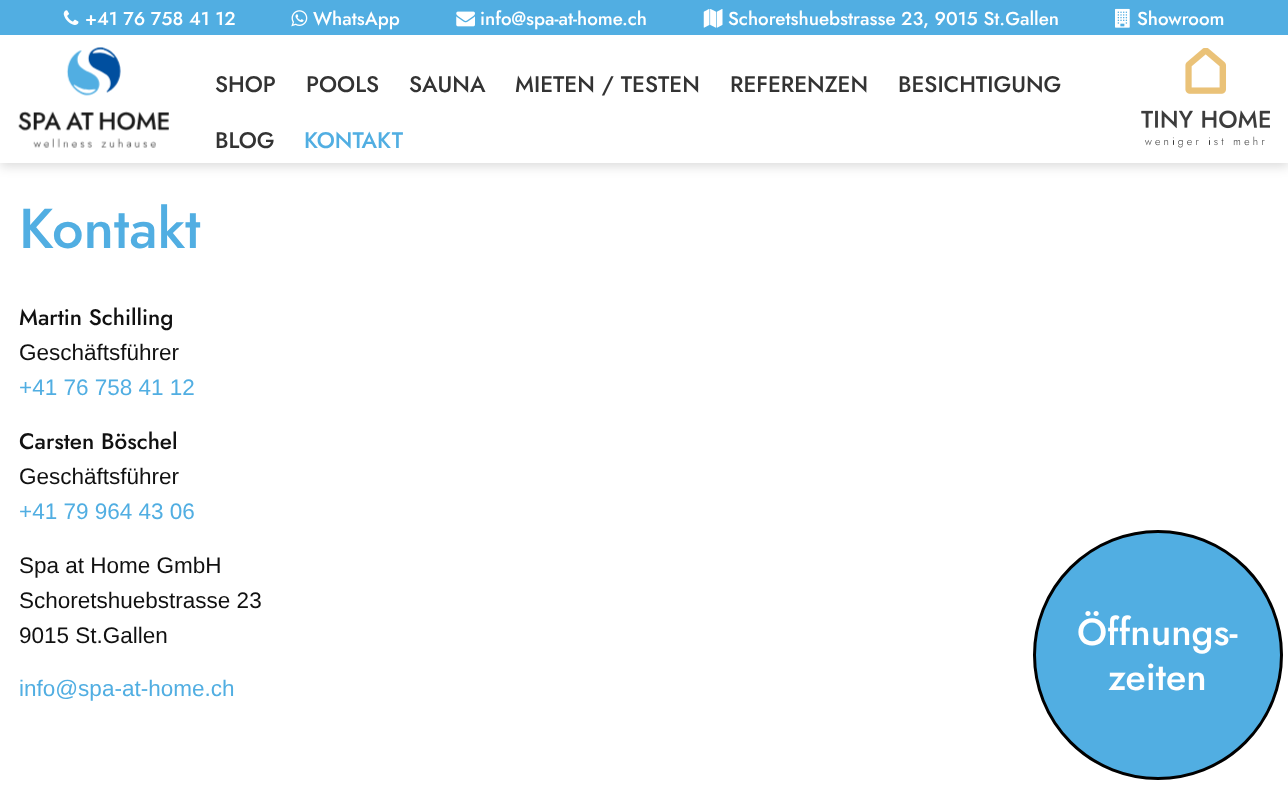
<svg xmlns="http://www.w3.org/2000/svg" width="1288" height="786">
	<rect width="100%" height="100%" fill="#FFFFFF" />
	<rect x="0" y="4" width="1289" height="162" fill="#000000" fill-opacity="0.15" filter="blur(6px)" />
	<rect x="0" y="35" width="1288" height="128" fill="#FFFFFF" />
	<rect x="0" y="0" width="1288" height="35" fill="#51AEE2" />
	<image x="63" y="10" width="16" height="15" href="assets/img1.png" />
	<text x="85" y="25" font-family="Jost" font-size="18.75" font-weight="500" fill="#FFFFFF">+41 76 758 41 12</text>
	<image x="291" y="10" width="17" height="17" href="assets/img2.png" />
	<text x="313" y="25" font-family="Jost" font-size="18.75" font-weight="500" fill="#FFFFFF">WhatsApp</text>
	<image x="456" y="11" width="19" height="16" href="assets/img3.png" />
	<text x="480" y="25" font-family="Jost" font-size="18.75" font-weight="500" fill="#FFFFFF">info@spa-at-home.ch</text>
	<image x="703" y="9" width="20" height="19" href="assets/img4.png" />
	<text x="728" y="25" font-family="Jost" font-size="18.75" font-weight="500" fill="#FFFFFF">Schoretshuebstrasse 23, 9015 St.Gallen</text>
	<image x="1115" y="8" width="15" height="20" href="assets/img5.png" />
	<text x="1137" y="25" font-family="Jost" font-size="18.75" font-weight="500" fill="#FFFFFF">Showroom</text>
	<image x="18" y="47" width="151" height="101" href="assets/img6.png" />
	<g font-family="Jost" font-size="22.5" font-weight="500" fill="#333333">
		<text x="215" y="92">SHOP</text>
		<text x="306" y="92">POOLS</text>
		<text x="409" y="92">SAUNA</text>
		<text x="515" y="92">MIETEN / TESTEN</text>
		<text x="730" y="92">REFERENZEN</text>
		<text x="898" y="92">BESICHTIGUNG</text>
		<text x="215" y="148">BLOG</text>
	</g>
	<text x="304" y="148" font-family="Jost" font-size="22.5" font-weight="500" fill="#51AEE2">KONTAKT</text>
	<image x="1141" y="48" width="129" height="100" href="assets/img7.png" />
	<text x="19" y="248" font-family="Jost" font-size="56" font-weight="500" fill="#51AEE2">Kontakt</text>
	<text x="19" y="325" font-family="Jost" font-size="22.5" font-weight="500" fill="#111111">Martin Schilling</text>
	<text x="19" y="360" font-family="Liberation Sans" font-size="22.5" fill="#111111">Geschäftsführer</text>
	<text x="19" y="395" font-family="Liberation Sans" font-size="22.5" fill="#51AEE2">+41 76 758 41 12</text>
	<text x="19" y="449" font-family="Jost" font-size="22.5" font-weight="500" fill="#111111">Carsten Böschel</text>
	<text x="19" y="484" font-family="Liberation Sans" font-size="22.5" fill="#111111">Geschäftsführer</text>
	<text x="19" y="519" font-family="Liberation Sans" font-size="22.5" fill="#51AEE2">+41 79 964 43 06</text>
	<g font-family="Liberation Sans" font-size="22.5" fill="#111111">
		<text x="19" y="573">Spa at Home GmbH</text>
		<text x="19" y="608">Schoretshuebstrasse 23</text>
		<text x="19" y="643">9015 St.Gallen</text>
	</g>
	<text x="19" y="696" font-family="Liberation Sans" font-size="22.5" fill="#51AEE2">info@spa-at-home.ch</text>
	<circle cx="1158" cy="655" r="123.5" fill="#51AEE2" stroke="#000000" stroke-width="3" />
	<g font-family="Jost" font-size="37.5" font-weight="500" fill="#FFFFFF">
		<text x="1077" y="645">Öffnungs-</text>
		<text x="1108" y="690">zeiten</text>
	</g>
</svg>
